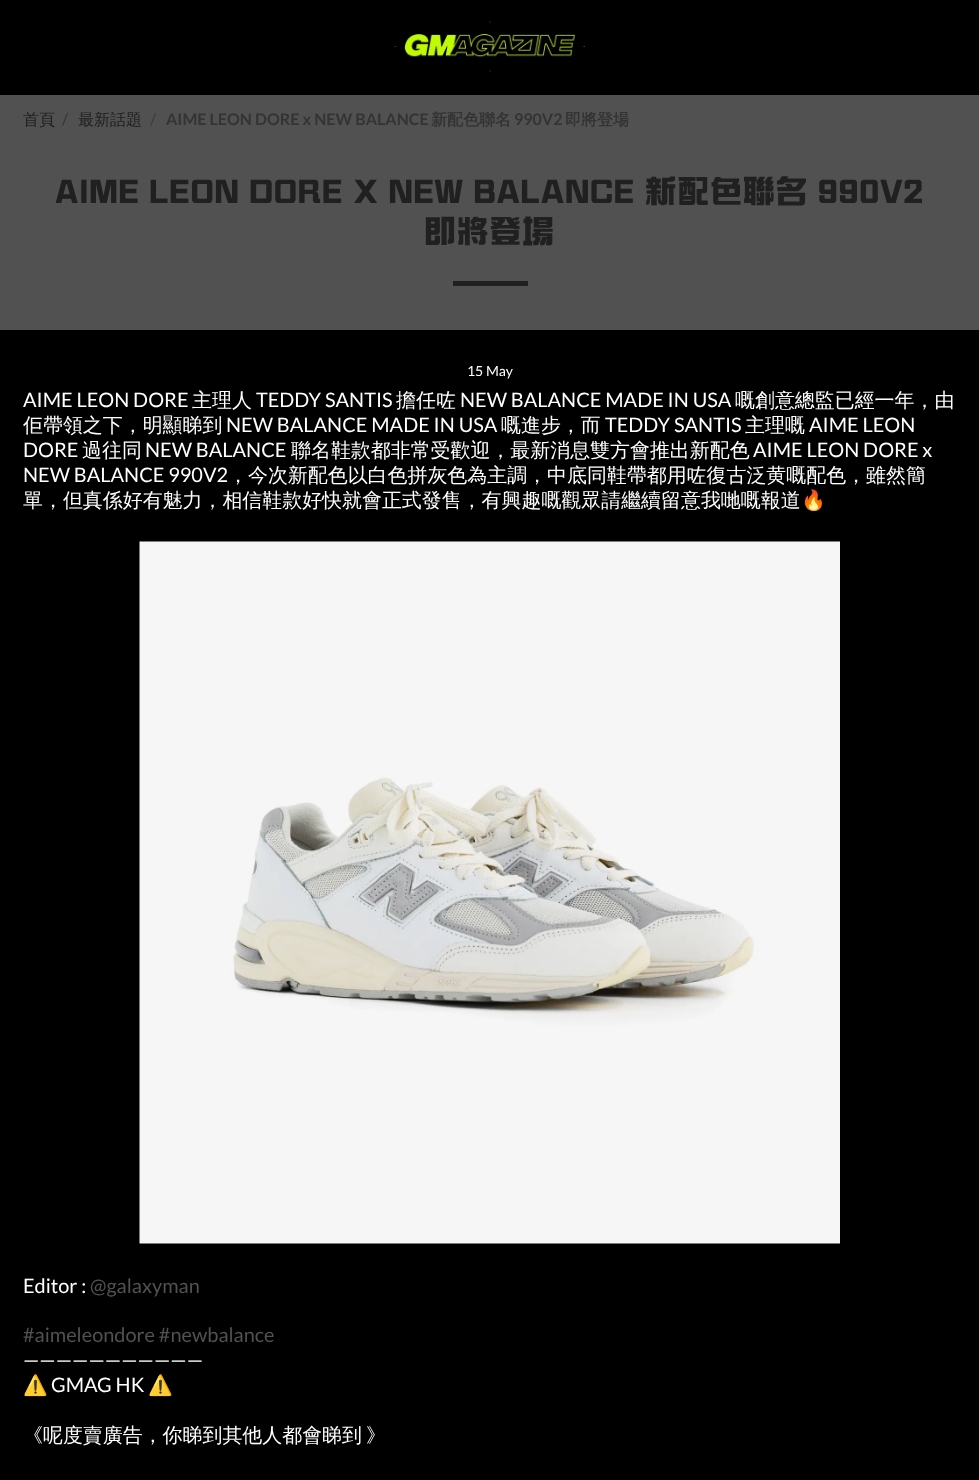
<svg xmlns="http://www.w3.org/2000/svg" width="979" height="1480">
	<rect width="100%" height="100%" fill="#000000" />
	<image x="394" y="21" width="191" height="51" href="assets/img1.png" />
	<rect x="0" y="95" width="979" height="235" fill="#515151" />
	<text x="23" y="125" font-family="WenQuanYi Zen Hei" font-size="16" font-weight="500" fill="#202020">首頁</text>
	<text x="62" y="125" font-family="Lato" font-size="16" fill="#343434">/</text>
	<text x="78" y="125" font-family="WenQuanYi Zen Hei" font-size="16" font-weight="500" fill="#202020">最新話題</text>
	<text x="150" y="125" font-family="Lato" font-size="16" font-weight="700" fill="#3F3F3F">/</text>
	<text x="166" y="125" font-family="Lato" font-size="16" font-weight="700" fill="#343434">AIME LEON DORE x NEW BALANCE</text>
	<text x="431" y="125" font-family="WenQuanYi Zen Hei" font-size="16" font-weight="700" fill="#343434">新配色聯名</text>
	<text x="514" y="125" font-family="Lato" font-size="16" font-weight="700" fill="#343434">990V2</text>
	<text x="565" y="125" font-family="WenQuanYi Zen Hei" font-size="16" font-weight="700" fill="#343434">即將登場</text>
	<g font-family="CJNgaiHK" font-size="31.95" font-weight="700" letter-spacing="0.75" fill="#202020">
		<text x="55" y="203">AIME LEON DORE X NEW BALANCE 新配色聯名 990V2</text>
		<text x="424" y="243">即將登場</text>
	</g>
	<rect x="453" y="281" width="75" height="5" fill="#202020" />
	<text x="467" y="376" font-family="Lato" font-size="14" fill="#FFFFFF">15 May</text>
	<text x="23" y="407" font-family="Lato" font-size="19.95" fill="#FFFFFF">AIME LEON DORE</text>
	<text x="192" y="407" font-family="WenQuanYi Zen Hei" font-size="19.95" font-weight="500" fill="#FFFFFF">主理人</text>
	<text x="256" y="407" font-family="Lato" font-size="19.95" fill="#FFFFFF">TEDDY SANTIS</text>
	<text x="396" y="407" font-family="WenQuanYi Zen Hei" font-size="19.95" font-weight="500" fill="#FFFFFF">擔任咗</text>
	<text x="460" y="407" font-family="Lato" font-size="19.95" fill="#FFFFFF">NEW BALANCE MADE IN USA</text>
	<g font-family="WenQuanYi Zen Hei" font-size="19.95" font-weight="500" fill="#FFFFFF">
		<text x="735" y="407">嘅創意總監已經一年，由</text>
		<text x="23" y="432">佢帶領之下，明顯睇到</text>
	</g>
	<text x="226" y="432" font-family="Lato" font-size="19.95" fill="#FFFFFF">NEW BALANCE MADE IN USA</text>
	<text x="501" y="432" font-family="WenQuanYi Zen Hei" font-size="19.95" font-weight="500" fill="#FFFFFF">嘅進步，而</text>
	<text x="605" y="432" font-family="Lato" font-size="19.95" fill="#FFFFFF">TEDDY SANTIS</text>
	<text x="745" y="432" font-family="WenQuanYi Zen Hei" font-size="19.95" font-weight="500" fill="#FFFFFF">主理嘅</text>
	<g font-family="Lato" font-size="19.95" fill="#FFFFFF">
		<text x="809" y="432">AIME LEON</text>
		<text x="23" y="457">DORE</text>
	</g>
	<text x="82" y="457" font-family="WenQuanYi Zen Hei" font-size="19.95" font-weight="500" fill="#FFFFFF">過往同</text>
	<text x="145" y="457" font-family="Lato" font-size="19.95" fill="#FFFFFF">NEW BALANCE</text>
	<text x="291" y="457" font-family="WenQuanYi Zen Hei" font-size="19.95" font-weight="500" fill="#FFFFFF">聯名鞋款都非常受歡迎，最新消息雙方會推出新配色</text>
	<g font-family="Lato" font-size="19.95" fill="#FFFFFF">
		<text x="753" y="457">AIME LEON DORE x</text>
		<text x="23" y="482">NEW BALANCE 990V2</text>
	</g>
	<g font-family="WenQuanYi Zen Hei" font-size="19.95" font-weight="500" fill="#FFFFFF">
		<text x="228" y="482">，今次新配色以白色拼灰色為主調，中底同鞋帶都用咗復古泛黄嘅配色，雖然簡</text>
		<text x="23" y="507">單，但真係好有魅力，相信鞋款好快就會正式發售，有興趣嘅觀眾請繼續留意我哋嘅報道</text>
	</g>
	<text x="801" y="507" font-family="Noto Color Emoji" font-size="19.95" fill="#FFFFFF">🔥</text>
	<image x="139" y="541" width="701" height="703" href="assets/img2.png" />
	<text x="23" y="1293" font-family="Lato" font-size="19.95" fill="#FFFFFF">Editor :</text>
	<g font-family="Lato" font-size="19.95" fill="#515151">
		<text x="90" y="1293">@galaxyman</text>
		<text x="23" y="1342">#aimeleondore #newbalance</text>
	</g>
	<text x="23" y="1367" font-family="Lato" font-size="19.95" fill="#FFFFFF">———————————</text>
	<text x="23" y="1392" font-family="Noto Color Emoji" font-size="19.95" fill="#FFFFFF">⚠️</text>
	<text x="51" y="1392" font-family="Lato" font-size="19.95" fill="#FFFFFF">GMAG HK</text>
	<text x="148" y="1392" font-family="Noto Color Emoji" font-size="19.95" fill="#FFFFFF">⚠️</text>
	<text x="23" y="1442" word-spacing="-2" font-family="WenQuanYi Zen Hei" font-size="19.95" font-weight="500" fill="#FFFFFF">《呢度賣廣告，你睇到其他人都會睇到 》</text>
</svg>
